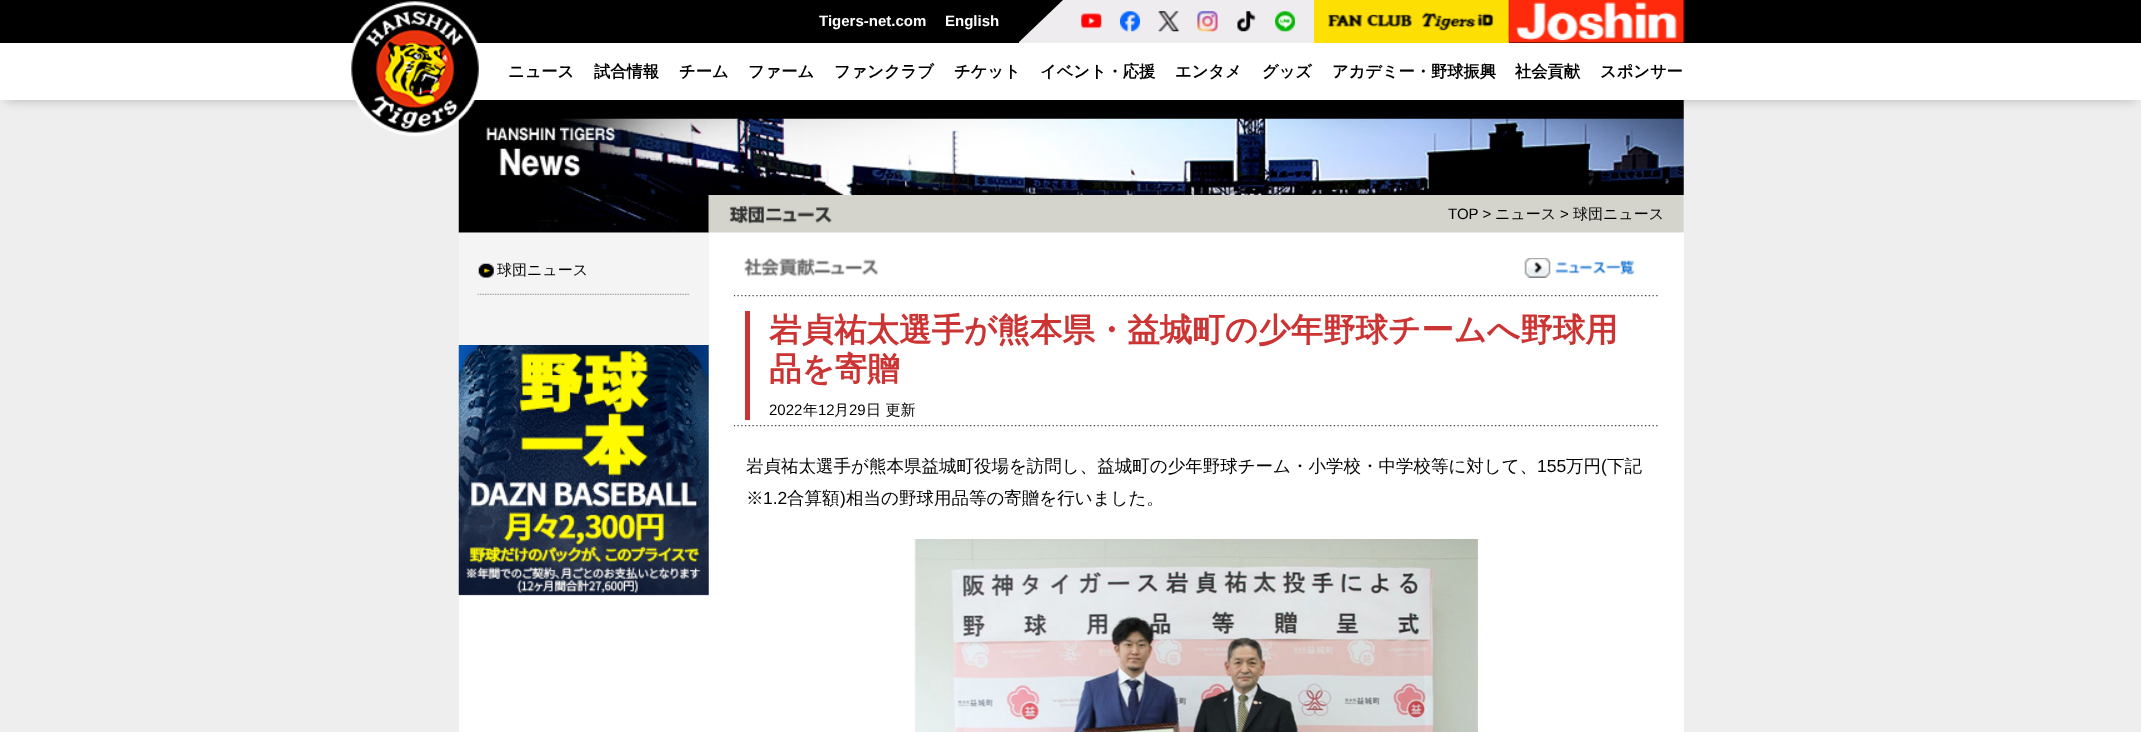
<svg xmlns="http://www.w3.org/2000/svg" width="2141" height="732">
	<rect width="100%" height="100%" fill="#EEEEEE" />
	<rect x="0" y="0" width="2141" height="43" fill="#000000" />
	<rect x="459" y="100" width="1225" height="632" fill="#FFFFFF" />
	<image x="458" y="100" width="1226" height="95" href="assets/img10.png" />
	<rect x="6" y="55" width="2129" height="45" fill="#000000" fill-opacity="0.25" filter="blur(6px)" />
	<rect x="0" y="43" width="2141" height="57" fill="#FFFFFF" />
	<image x="351" y="1" width="128" height="136" href="assets/img1.png" />
	<g font-family="Liberation Sans" font-size="15" font-weight="700" fill="#FFFFFF">
		<text x="819" y="26">Tigers-net.com</text>
		<text x="945" y="26">English</text>
	</g>
	<rect x="1019" y="0" width="295" height="43" fill="#EEECEF" />
	<path d="M1019 0V42L1063 0Z" fill="#000000" />
	<image x="1081" y="13" width="21" height="16" href="assets/img2.png" />
	<image x="1120" y="11" width="20" height="21" href="assets/img3.png" />
	<image x="1158" y="11" width="22" height="21" href="assets/img4.png" />
	<image x="1197" y="11" width="21" height="21" href="assets/img5.png" />
	<image x="1237" y="11" width="19" height="21" href="assets/img6.png" />
	<image x="1275" y="11" width="20" height="21" href="assets/img7.png" />
	<rect x="1314" y="0" width="195" height="43" fill="#FDDF03" />
	<image x="1328" y="12" width="166" height="19" href="assets/img8.png" />
	<image x="1508" y="0" width="177" height="43" href="assets/img9.png" />
	<g font-family="WenQuanYi Zen Hei" font-size="16.25" font-weight="700" fill="#000000">
		<text x="508" y="77">ニュース</text>
		<text x="594" y="77">試合情報</text>
		<text x="679" y="77">チーム</text>
		<text x="748" y="77">ファーム</text>
		<text x="834" y="77">ファンクラブ</text>
		<text x="954" y="77">チケット</text>
		<text x="1040" y="77">イベント・応援</text>
		<text x="1175" y="77">エンタメ</text>
		<text x="1262" y="77">グッズ</text>
		<text x="1332" y="77">アカデミー・野球振興</text>
		<text x="1515" y="77">社会貢献</text>
		<text x="1600" y="77">スポンサー</text>
	</g>
	<image x="458" y="195" width="251" height="38" href="assets/img11.png" />
	<rect x="459" y="233" width="250" height="112" fill="#F4F4F4" />
	<image x="477" y="293" width="213" height="2" href="assets/img12.png" />
	<image x="478" y="263" width="16" height="15" href="assets/img13.png" />
	<text x="497" y="275" font-family="WenQuanYi Zen Hei" font-size="15" font-weight="500" fill="#000000">球団ニュース</text>
	<image x="458" y="345" width="251" height="251" href="assets/img14.png" />
	<image x="708" y="195" width="976" height="38" href="assets/img15.png" />
	<text x="1448" y="219" font-family="Liberation Sans" font-size="15" fill="#000000">TOP &gt;</text>
	<text x="1495" y="219" font-family="WenQuanYi Zen Hei" font-size="15" font-weight="500" fill="#000000">ニュース</text>
	<text x="1560" y="219" font-family="Liberation Sans" font-size="15" fill="#000000">&gt;</text>
	<text x="1573" y="219" font-family="WenQuanYi Zen Hei" font-size="15" font-weight="500" fill="#000000">球団ニュース</text>
	<image x="733" y="295" width="925" height="2" href="assets/img16.png" />
	<image x="744" y="258" width="134" height="19" href="assets/img17.png" />
	<image x="1524" y="258" width="110" height="20" href="assets/img18.png" />
	<rect x="745" y="311" width="5" height="109" fill="#CC3333" />
	<g font-family="WenQuanYi Zen Hei" font-size="32.5" font-weight="700" fill="#CC3333">
		<text x="769" y="341">岩貞祐太選手が熊本県・益城町の少年野球チームへ野球用</text>
		<text x="769" y="380">品を寄贈</text>
	</g>
	<text x="769" y="415" font-family="Liberation Sans" font-size="15" fill="#000000">2022</text>
	<text x="803" y="415" font-family="WenQuanYi Zen Hei" font-size="15" font-weight="500" fill="#000000">年</text>
	<text x="818" y="415" font-family="Liberation Sans" font-size="15" fill="#000000">12</text>
	<text x="834" y="415" font-family="WenQuanYi Zen Hei" font-size="15" font-weight="500" fill="#000000">月</text>
	<text x="849" y="415" font-family="Liberation Sans" font-size="15" fill="#000000">29</text>
	<text x="866" y="415" font-family="WenQuanYi Zen Hei" font-size="15" font-weight="500" fill="#000000">日 更新</text>
	<image x="733" y="425" width="925" height="2" href="assets/img16.png" />
	<text x="746" y="472" font-family="WenQuanYi Zen Hei" font-size="17.5" font-weight="500" fill="#000000">岩貞祐太選手が熊本県益城町役場を訪問し、益城町の少年野球チーム・小学校・中学校等に対して、</text>
	<text x="1537" y="472" font-family="Liberation Sans" font-size="17.5" fill="#000000">155</text>
	<text x="1566" y="472" font-family="WenQuanYi Zen Hei" font-size="17.5" font-weight="500" fill="#000000">万円</text>
	<text x="1601" y="472" font-family="Liberation Sans" font-size="17.5" fill="#000000">(</text>
	<g font-family="WenQuanYi Zen Hei" font-size="17.5" font-weight="500" fill="#000000">
		<text x="1607" y="472">下記</text>
		<text x="746" y="504">※</text>
	</g>
	<text x="763" y="504" font-family="Liberation Sans" font-size="17.5" fill="#000000">1.2</text>
	<text x="787" y="504" font-family="WenQuanYi Zen Hei" font-size="17.5" font-weight="500" fill="#000000">合算額</text>
	<text x="840" y="504" font-family="Liberation Sans" font-size="17.5" fill="#000000">)</text>
	<text x="846" y="504" font-family="WenQuanYi Zen Hei" font-size="17.5" font-weight="500" fill="#000000">相当の野球用品等の寄贈を行いました。</text>
	<image x="914" y="539" width="564" height="193" href="assets/img19.png" />
</svg>
